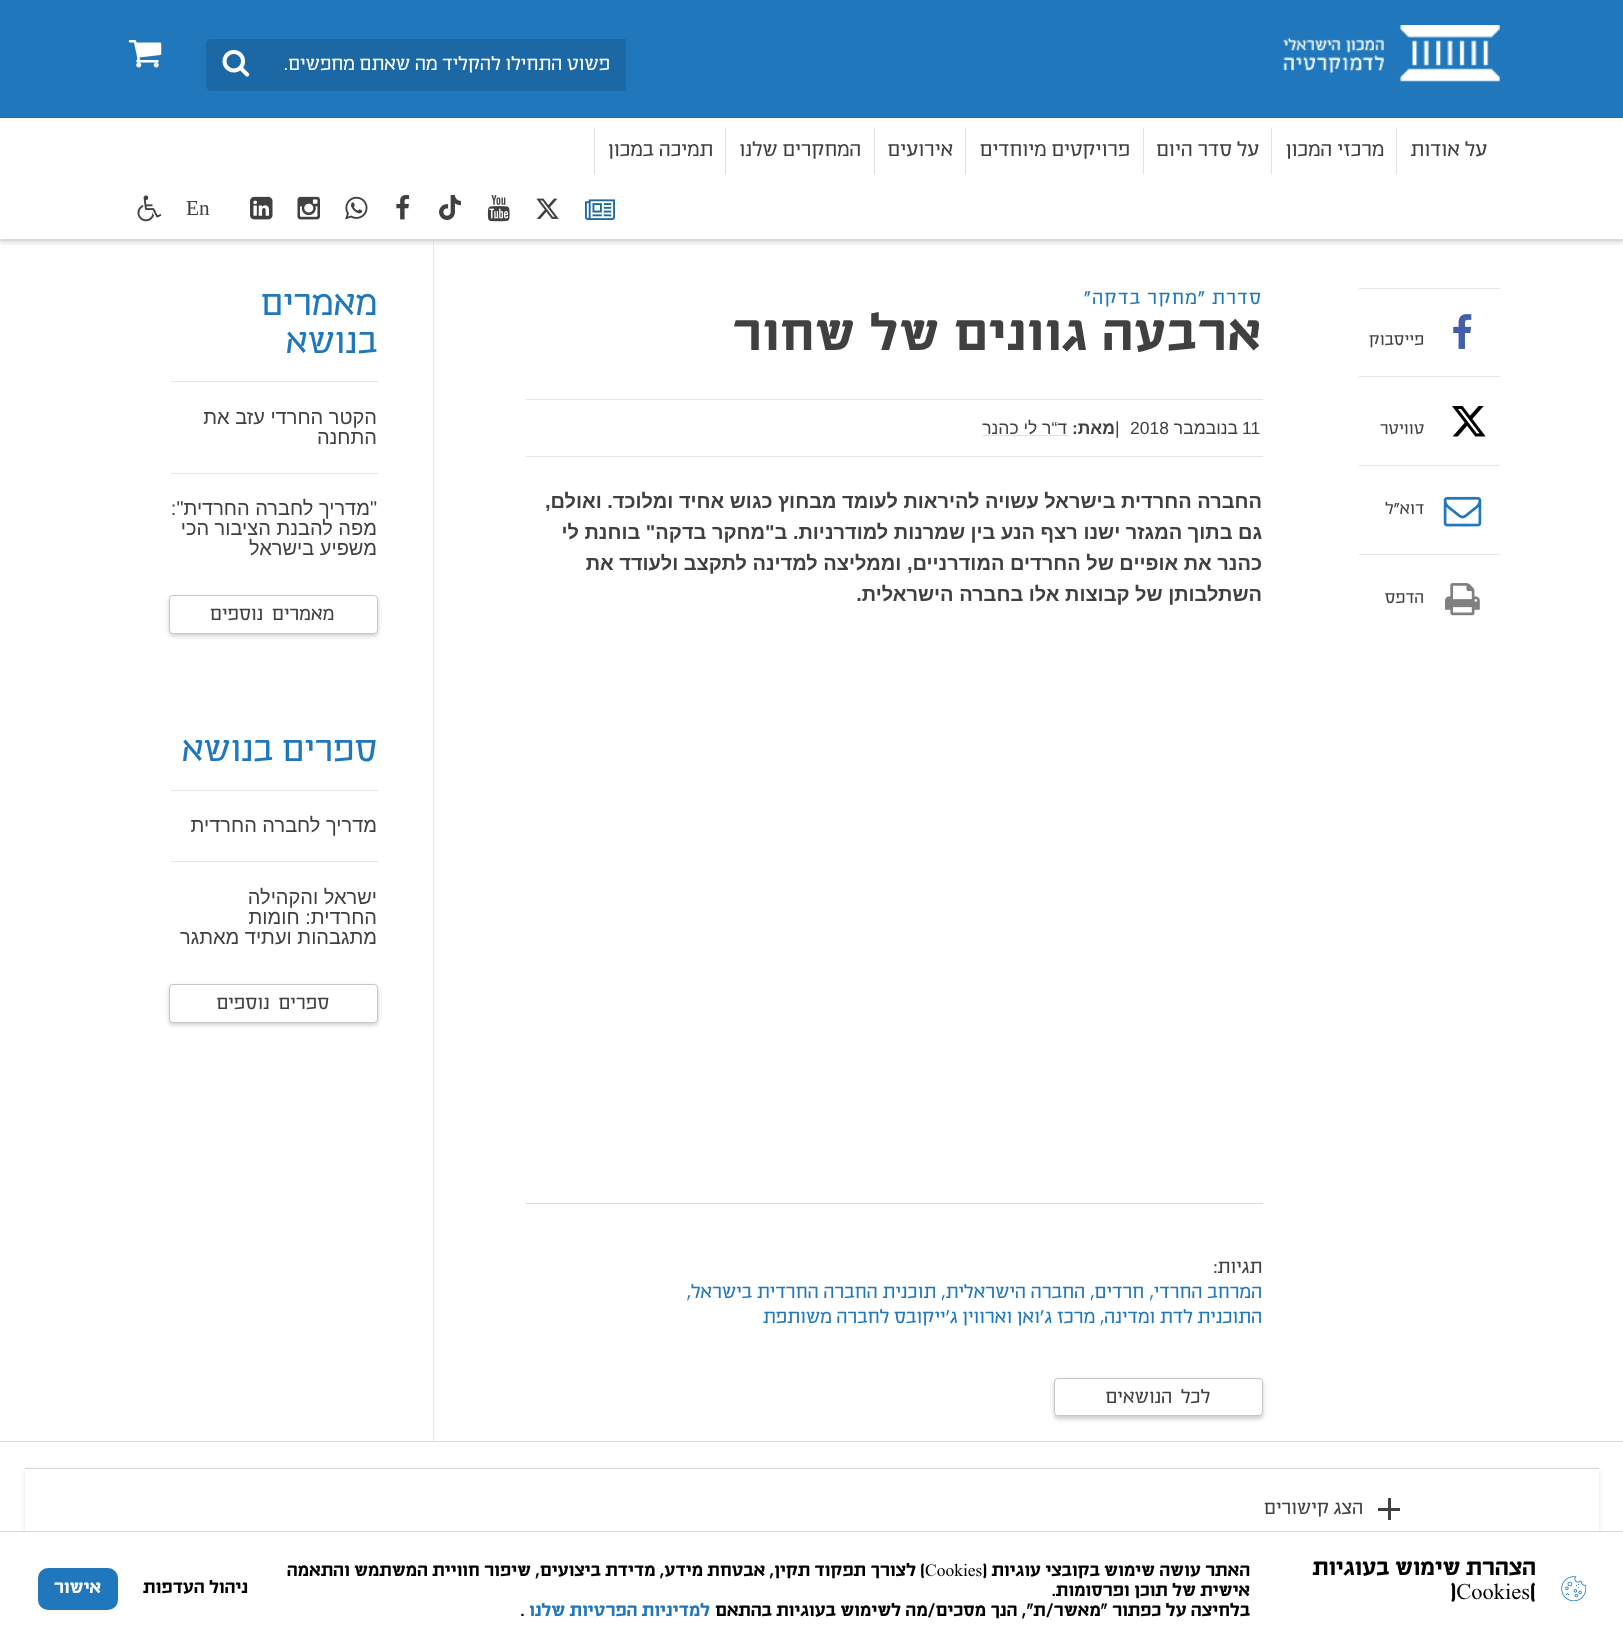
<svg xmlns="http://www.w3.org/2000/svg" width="1623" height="1643">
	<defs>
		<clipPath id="clip1"><rect x="285" y="53" width="325" height="25" /></clipPath>
		<clipPath id="clip2"><path d="M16 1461H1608V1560H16ZM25 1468H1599V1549H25Z" clip-rule="evenodd" /></clipPath>
	</defs>
	<rect width="100%" height="100%" fill="#FFFFFF" />
	<rect x="0" y="0" width="1623" height="118" fill="#2077BC" />
	<image x="1283" y="25" width="217" height="57" href="assets/img1.png" />
	<rect x="265" y="39" width="361" height="52" fill="#1C68A5" />
	<g clip-path="url(#clip1)">
		<text x="610" y="70" font-family="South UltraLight" font-size="20" font-weight="200" direction="rtl" fill="#FFFFFF">פשוט התחילו להקליד מה שאתם מחפשים...</text>
	</g>
	<path d="M211 39.5H264.5V90.5H211C208.5 90.5 206.5 88.5 206.5 86V44C206.5 41.5 208.5 39.5 211 39.5Z" fill="#1C68A5" stroke="#1C68A5" />
	<image x="222" y="49" width="28" height="28" href="assets/img2.png" />
	<image x="128" y="40" width="34" height="28" href="assets/img3.png" />
	<rect x="0" y="184" width="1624" height="59" fill="#000000" fill-opacity="0.1" filter="blur(2.5px)" />
	<rect x="0" y="240" width="1623" height="1" fill="#E4E4E5" />
	<rect x="433" y="241" width="1" height="1200" fill="#E5E5E5" />
	<rect x="0" y="119" width="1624" height="121" fill="#000000" fill-opacity="0.1" filter="blur(2.5px)" />
	<rect x="0" y="118" width="1623" height="121" fill="#FFFFFF" />
	<rect x="1396" y="128" width="1" height="46" fill="#E4E4E5" />
	<text x="1487" y="156" font-family="South UltraLight" font-size="21.25" font-weight="200" direction="rtl" fill="#404041">על אודות</text>
	<rect x="1271" y="128" width="1" height="46" fill="#E4E4E5" />
	<text x="1384" y="156" font-family="South UltraLight" font-size="21.25" font-weight="200" direction="rtl" fill="#404041">מרכזי המכון</text>
	<rect x="1143" y="128" width="1" height="46" fill="#E4E4E5" />
	<text x="1259" y="156" font-family="South UltraLight" font-size="21.25" font-weight="200" direction="rtl" fill="#404041">על סדר היום</text>
	<rect x="965" y="128" width="1" height="46" fill="#E4E4E5" />
	<text x="1130" y="156" font-family="South UltraLight" font-size="21.25" font-weight="200" direction="rtl" fill="#404041">פרויקטים מיוחדים</text>
	<rect x="874" y="128" width="1" height="46" fill="#E4E4E5" />
	<text x="953" y="156" font-family="South UltraLight" font-size="21.25" font-weight="200" direction="rtl" fill="#404041">אירועים</text>
	<rect x="725" y="128" width="1" height="46" fill="#E4E4E5" />
	<text x="861" y="156" font-family="South UltraLight" font-size="21.25" font-weight="200" direction="rtl" fill="#404041">המחקרים שלנו</text>
	<rect x="594" y="128" width="1" height="46" fill="#E4E4E5" />
	<text x="713" y="156" font-family="South UltraLight" font-size="21.25" font-weight="200" direction="rtl" fill="#404041">תמיכה במכון</text>
	<image x="585" y="199" width="30" height="21" href="assets/img4.png" />
	<image x="536" y="198" width="23" height="21" href="assets/img5.png" />
	<image x="487" y="195" width="23" height="27" href="assets/img6.png" />
	<image x="439" y="195" width="22" height="25" href="assets/img7.png" />
	<image x="396" y="195" width="14" height="25" href="assets/img8.png" />
	<image x="345" y="196" width="23" height="24" href="assets/img9.png" />
	<image x="297" y="196" width="23" height="24" href="assets/img10.png" />
	<image x="250" y="196" width="23" height="24" href="assets/img11.png" />
	<text x="186" y="215" font-family="Liberation Serif" font-size="21.25" fill="#404041">En</text>
	<image x="137" y="195" width="25" height="27" href="assets/img12.png" />
	<rect x="1359" y="288" width="141" height="1" fill="#E5E5E5" />
	<image x="1453" y="314" width="19" height="35" href="assets/img13.png" />
	<text x="1424" y="345" font-family="South UltraLight" font-size="17.5" font-weight="200" direction="rtl" fill="#404041">פייסבוק</text>
	<rect x="1359" y="376" width="141" height="1" fill="#E5E5E5" />
	<image x="1452" y="406" width="34" height="31" href="assets/img14.png" />
	<text x="1424" y="434" font-family="South UltraLight" font-size="17.5" font-weight="200" direction="rtl" fill="#404041">טוויטר</text>
	<rect x="1359" y="465" width="141" height="1" fill="#E5E5E5" />
	<image x="1443" y="496" width="39" height="31" href="assets/img15.png" />
	<text x="1424" y="514" font-family="South UltraLight" font-size="17.5" font-weight="200" direction="rtl" fill="#404041">דוא”ל</text>
	<rect x="1359" y="554" width="141" height="1" fill="#E5E5E5" />
	<image x="1445" y="583" width="35" height="33" href="assets/img16.png" />
	<text x="1424" y="603" font-family="South UltraLight" font-size="17.5" font-weight="200" direction="rtl" fill="#404041">הדפס</text>
	<text x="1262" y="304" font-family="South UltraLight" font-size="20" font-weight="200" letter-spacing="1.25" direction="rtl" fill="#2077BC">סדרת "מחקר בדקה"</text>
	<text x="1262" y="350" font-family="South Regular" font-size="50" letter-spacing="1.25" direction="rtl" fill="#404041">ארבעה גוונים של שחור</text>
	<rect x="526" y="399" width="737" height="1" fill="#E5E5E5" />
	<rect x="526" y="456" width="737" height="1" fill="#E5E5E5" />
	<text x="1242" y="434" font-family="Liberation Sans" font-size="17.5" fill="#404041">11</text>
	<text x="1238" y="434" font-family="Liberation Sans" font-size="17.5" direction="rtl" fill="#404041">בנובמבר</text>
	<g font-family="Liberation Sans" font-size="17.5" fill="#404041">
		<text x="1130" y="434">2018</text>
		<text x="1115" y="434">|</text>
	</g>
	<text x="1115" y="434" font-family="Liberation Sans" font-size="17.5" font-weight="700" direction="rtl" fill="#404041">מאת:</text>
	<text x="1067" y="434" font-family="Liberation Sans" font-size="17.5" direction="rtl" fill="#404041">ד“ר לי כהנר</text>
	<rect x="983" y="435" width="85" height="1" fill="#D2E4F2" />
	<g font-family="Liberation Sans" font-size="20" font-weight="700" direction="rtl" fill="#404041">
		<text x="1262" y="508">החברה החרדית בישראל עשויה להיראות לעומד מבחוץ כגוש אחיד ומלוכד. ואולם,</text>
		<text x="1262" y="539">גם בתוך המגזר ישנו רצף הנע בין שמרנות למודרניות. ב"מחקר בדקה" בוחנת לי</text>
		<text x="1262" y="570">כהנר את אופיים של החרדים המודרניים, וממליצה למדינה לתקצב ולעודד את</text>
		<text x="1262" y="601">השתלבותן של קבוצות אלו בחברה הישראלית.</text>
	</g>
	<rect x="526" y="1203" width="737" height="1" fill="#D9D9D9" />
	<text x="1262" y="1273" font-family="South UltraLight" font-size="20" font-weight="200" direction="rtl" fill="#404041">תגיות:</text>
	<g font-family="South UltraLight" font-size="20" font-weight="200" direction="rtl" fill="#2077BC">
		<text x="1262" y="1298">המרחב החרדי,</text>
		<text x="1144" y="1298">חרדים,</text>
		<text x="1085" y="1298">החברה הישראלית,</text>
		<text x="936" y="1298">תוכנית החברה החרדית בישראל,</text>
		<text x="1262" y="1323">התוכנית לדת ומדינה,</text>
		<text x="1095" y="1323">מרכז ג'ואן וארווין ג'ייקובס לחברה משותפת</text>
	</g>
	<rect x="1054" y="1380" width="209" height="39" rx="4" fill="#020303" fill-opacity="0.2" filter="blur(2px)" />
	<rect x="1054.5" y="1378.5" width="208" height="37" rx="3.5" fill="#FFFFFF" stroke="#C7C7C7" />
	<text x="1210" y="1403" word-spacing="4" font-family="South UltraLight" font-size="20" font-weight="200" direction="rtl" fill="#404041">לכל הנושאים</text>
	<g font-family="South UltraLight" font-size="37.5" font-weight="200" direction="rtl" fill="#2077BC">
		<text x="377" y="315">מאמרים</text>
		<text x="377" y="353">בנושא</text>
	</g>
	<rect x="171" y="381" width="207" height="1" fill="#E5E5E5" />
	<g font-family="Liberation Sans" font-size="20" direction="rtl" fill="#404041">
		<text x="377" y="424">הקטר החרדי עזב את</text>
		<text x="377" y="444">התחנה</text>
	</g>
	<rect x="171" y="473" width="207" height="1" fill="#E5E5E5" />
	<g font-family="Liberation Sans" font-size="20" direction="rtl" fill="#404041">
		<text x="377" y="515">"מדריך לחברה החרדית":</text>
		<text x="377" y="535">מפה להבנת הציבור הכי</text>
		<text x="377" y="555">משפיע בישראל</text>
	</g>
	<rect x="169" y="598" width="209" height="38" rx="4" fill="#020303" fill-opacity="0.2" filter="blur(2px)" />
	<rect x="169.5" y="595.5" width="208" height="38" rx="3.5" fill="#FFFFFF" stroke="#C7C7C7" />
	<text x="334" y="620" word-spacing="4" font-family="South UltraLight" font-size="20" font-weight="200" direction="rtl" fill="#404041">מאמרים נוספים</text>
	<text x="377" y="761" font-family="South UltraLight" font-size="37.5" font-weight="200" direction="rtl" fill="#2077BC">ספרים בנושא</text>
	<rect x="171" y="790" width="207" height="1" fill="#E5E5E5" />
	<text x="377" y="832" font-family="Liberation Sans" font-size="20" direction="rtl" fill="#404041">מדריך לחברה החרדית</text>
	<rect x="171" y="861" width="207" height="1" fill="#E5E5E5" />
	<g font-family="Liberation Sans" font-size="20" direction="rtl" fill="#404041">
		<text x="377" y="904">ישראל והקהילה</text>
		<text x="377" y="924">החרדית: חומות</text>
		<text x="377" y="944">מתגבהות ועתיד מאתגר</text>
	</g>
	<rect x="169" y="986" width="209" height="39" rx="4" fill="#020303" fill-opacity="0.2" filter="blur(2px)" />
	<rect x="169.5" y="984.5" width="208" height="38" rx="3.5" fill="#FFFFFF" stroke="#C7C7C7" />
	<text x="329" y="1009" word-spacing="4" font-family="South UltraLight" font-size="20" font-weight="200" direction="rtl" fill="#404041">ספרים נוספים</text>
	<rect x="0" y="1441" width="1623" height="1" fill="#D9D9D9" />
	<g clip-path="url(#clip2)">
		<rect x="25" y="1470" width="1574" height="81" fill="#020203" fill-opacity="0.1" filter="blur(2.5px)" />
	</g>
	<rect x="25" y="1468" width="1574" height="1" fill="#D9D9D9" />
	<rect x="1378" y="1508" width="22" height="3" fill="#404041" />
	<rect x="1388" y="1498" width="3" height="22" fill="#404041" />
	<text x="1363" y="1514" font-family="South UltraLight" font-size="20" font-weight="200" direction="rtl" fill="#404041">הצג קישורים</text>
	<path d="M0 1531V1532H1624V1643V1531Z" fill="#000000" fill-opacity="0.15" />
	<rect x="22" y="1533" width="1580" height="21" fill="#FFFFFF" />
	<image x="1561" y="1576" width="25" height="25" href="assets/img17.png" />
	<text x="1536" y="1575" font-family="South Regular" font-size="22.5" direction="rtl" fill="#000000">הצהרת שימוש בעוגיות</text>
	<text x="1450" y="1599" font-family="South Regular" font-size="22.5" fill="#000000">)Cookies(</text>
	<text x="1250" y="1576" font-family="South Regular" font-size="17.5" direction="rtl" fill="#000000">האתר עושה שימוש בקובצי עוגיות (</text>
	<text x="925" y="1576" font-family="South Regular" font-size="17.5" fill="#000000">Cookies</text>
	<g font-family="South Regular" font-size="17.5" direction="rtl" fill="#000000">
		<text x="925" y="1576">) לצורך תפקוד תקין, אבטחת מידע, מדידת ביצועים, שיפור חוויית המשתמש והתאמה</text>
		<text x="1250" y="1596">אישית של תוכן ופרסומות.</text>
		<text x="1250" y="1616">בלחיצה על כפתור "מאשר/ת", הנך מסכים/מה לשימוש בעוגיות בהתאם</text>
	</g>
	<text x="710" y="1616" font-family="South Regular" font-size="17.5" direction="rtl" fill="#2077BC">למדיניות הפרטיות שלנו</text>
	<text x="521" y="1616" font-family="South Regular" font-size="17.5" fill="#000000">.</text>
	<text x="248" y="1593" font-family="South Regular" font-size="17.5" direction="rtl" fill="#000000">ניהול העדפות</text>
	<rect x="38" y="1568" width="80" height="42" rx="10" fill="#2077BC" />
	<text x="101" y="1593" font-family="South Regular" font-size="17.5" direction="rtl" fill="#FFFFFF">אישור</text>
</svg>
